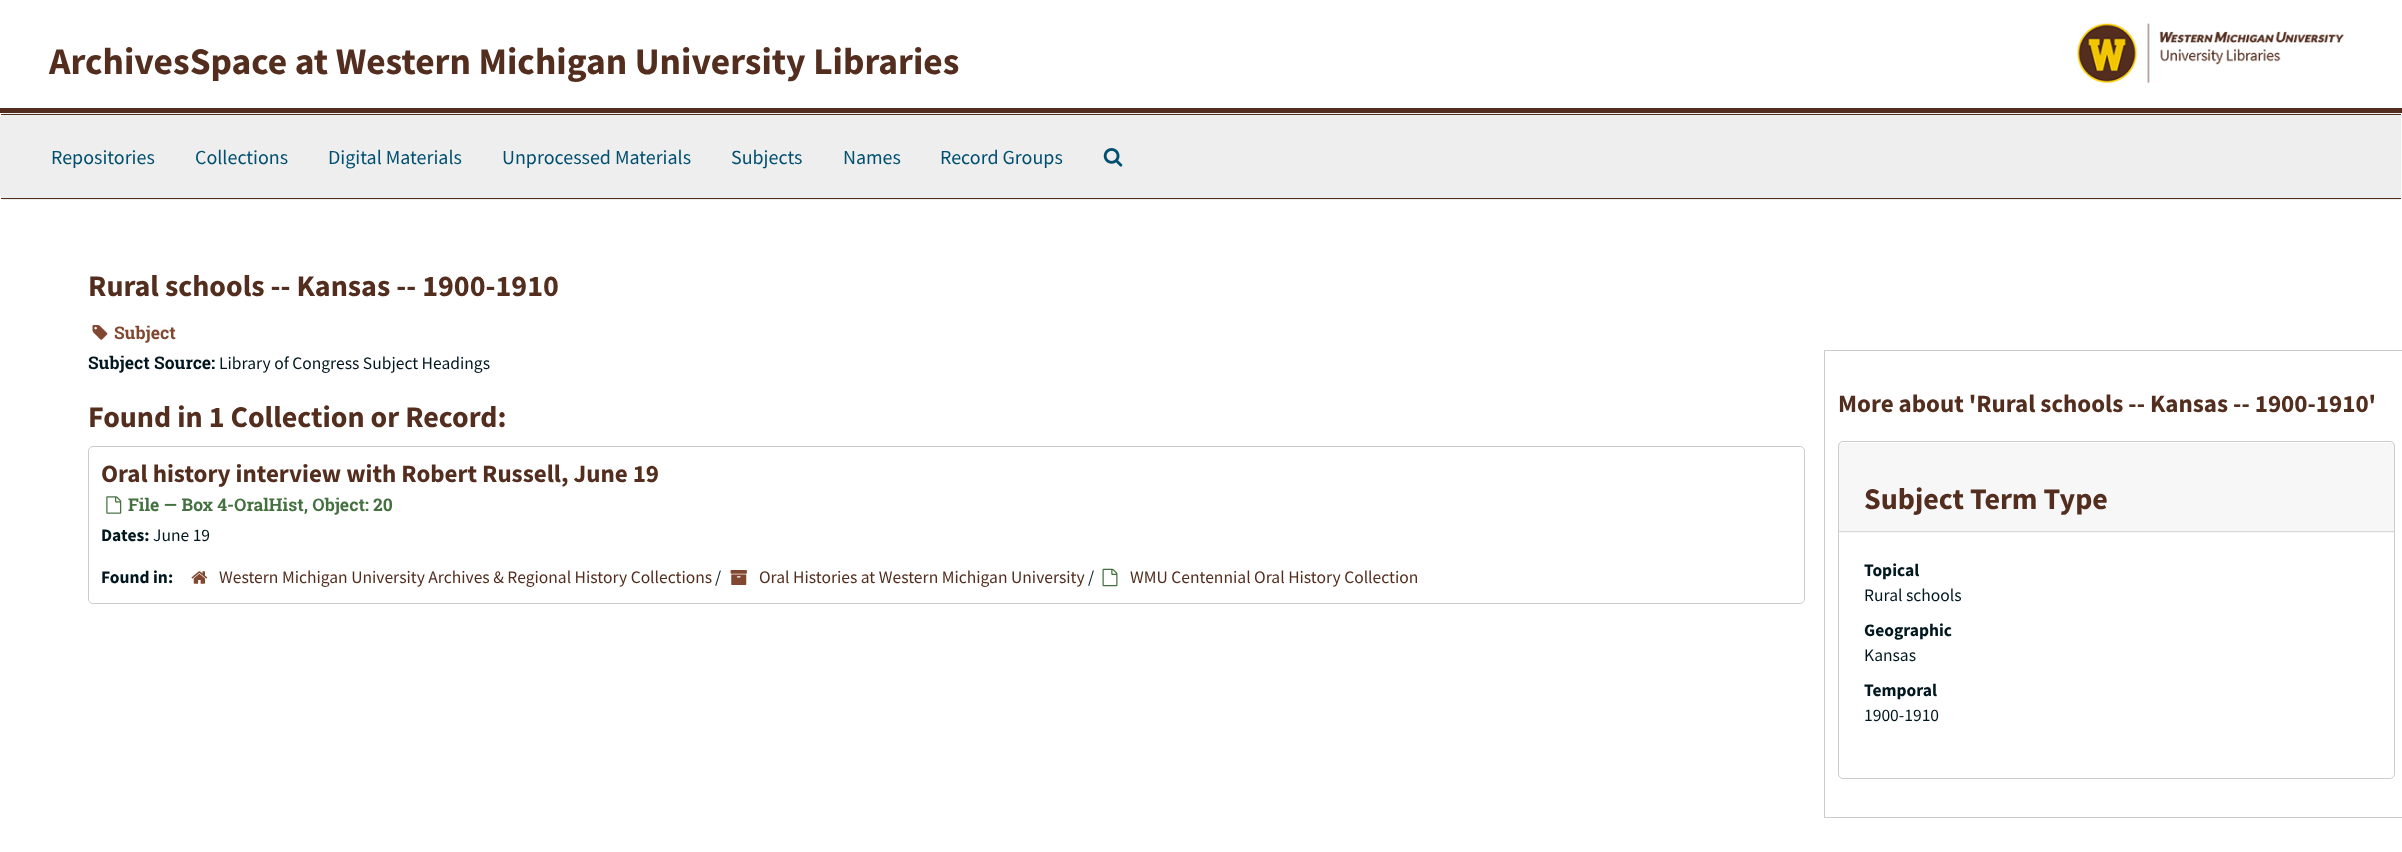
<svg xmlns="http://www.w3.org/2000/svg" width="2402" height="852">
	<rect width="100%" height="100%" fill="#FFFFFF" />
	<rect x="0" y="108" width="2402" height="5" fill="#532E1F" />
	<text x="49" y="74" font-family="Source Sans Pro" font-size="37.5" font-weight="700" fill="#532E1F">ArchivesSpace at Western Michigan University Libraries</text>
	<image x="2077" y="23" width="267" height="60" href="assets/img1.png" />
	<rect x="0.5" y="113.5" width="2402" height="86" rx="4.5" fill="#F8F9FA" stroke="#EEEEEE" />
	<rect x="1" y="115" width="2400" height="83" fill="#EEEEEE" />
	<rect x="1" y="114" width="2400" height="1" fill="#532E1F" />
	<rect x="1" y="198" width="2400" height="1" fill="#532E1F" />
	<g font-family="Source Sans Pro" font-size="20" fill="#004F6F">
		<text x="51" y="164">Repositories</text>
		<text x="195" y="164">Collections</text>
		<text x="328" y="164">Digital Materials</text>
		<text x="502" y="164">Unprocessed Materials</text>
		<text x="731" y="164">Subjects</text>
		<text x="843" y="164">Names</text>
		<text x="940" y="164">Record Groups</text>
	</g>
	<image x="1103" y="148" width="20" height="19" href="assets/img2.png" />
	<text x="88" y="296" font-family="Source Sans Pro" font-size="30" font-weight="700" fill="#532E1F">Rural schools -- Kansas -- 1900-1910</text>
	<image x="92" y="325" width="16" height="15" href="assets/img3.png" />
	<text x="114" y="339" font-family="Roboto Slab" font-size="17.5" font-weight="700" fill="#824730">Subject</text>
	<text x="88" y="369" font-family="Roboto Slab" font-size="17.5" font-weight="700" fill="#00171F">Subject Source:</text>
	<text x="219" y="369" font-family="Source Sans Pro" font-size="17.5" fill="#00171F">Library of Congress Subject Headings</text>
	<text x="88" y="427" font-family="Source Sans Pro" font-size="30" font-weight="700" fill="#532E1F">Found in 1 Collection or Record:</text>
	<rect x="88.5" y="446.5" width="1716" height="157" rx="4.5" fill="none" stroke="#CCCCCC" />
	<text x="101" y="482" font-family="Source Sans Pro" font-size="25" font-weight="700" fill="#532E1F">Oral history interview with Robert Russell, June 19</text>
	<image x="106" y="496" width="16" height="18" href="assets/img4.png" />
	<text x="128" y="511" font-family="Roboto Slab" font-size="17.5" font-weight="700" fill="#457141">File — Box 4-OralHist, Object: 20</text>
	<text x="101" y="541" font-family="Source Sans Pro" font-size="17.5" font-weight="700" fill="#00171F">Dates:</text>
	<text x="153" y="541" font-family="Source Sans Pro" font-size="17.5" fill="#00171F">June 19</text>
	<text x="101" y="583" font-family="Source Sans Pro" font-size="17.5" font-weight="700" fill="#00171F">Found in:</text>
	<image x="191" y="571" width="17" height="13" href="assets/img5.png" />
	<text x="219" y="583" font-family="Source Sans Pro" font-size="17.5" fill="#532E1F">Western Michigan University Archives &amp; Regional History Collections</text>
	<text x="715" y="583" font-family="Source Sans Pro" font-size="17.5" fill="#00171F">/</text>
	<image x="730" y="570" width="17" height="15" href="assets/img6.png" />
	<text x="759" y="583" font-family="Source Sans Pro" font-size="17.5" fill="#532E1F">Oral Histories at Western Michigan University</text>
	<text x="1088" y="583" font-family="Source Sans Pro" font-size="17.5" fill="#00171F">/</text>
	<image x="1102" y="568" width="16" height="19" href="assets/img7.png" />
	<text x="1130" y="583" font-family="Source Sans Pro" font-size="17.5" fill="#532E1F">WMU Centennial Oral History Collection</text>
	<rect x="1824.5" y="350.5" width="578" height="467" fill="none" stroke="#CCCCCC" />
	<text x="1838" y="412" font-family="Source Sans Pro" font-size="25" font-weight="700" fill="#532E1F">More about 'Rural schools -- Kansas -- 1900-1910'</text>
	<rect x="1838.5" y="441.5" width="556" height="337" rx="4.5" fill="none" stroke="#CCCCCC" />
	<rect x="1839" y="443" width="555" height="90" fill="#000000" fill-opacity="0.03" />
	<rect x="1839" y="531" width="555" height="1" fill="#D8D8D8" />
	<text x="1864" y="509" font-family="Source Sans Pro" font-size="30" font-weight="700" fill="#532E1F">Subject Term Type</text>
	<text x="1864" y="576" font-family="Source Sans Pro" font-size="17.5" font-weight="700" fill="#00171F">Topical</text>
	<text x="1864" y="601" font-family="Source Sans Pro" font-size="17.5" fill="#00171F">Rural schools</text>
	<text x="1864" y="636" font-family="Source Sans Pro" font-size="17.5" font-weight="700" fill="#00171F">Geographic</text>
	<text x="1864" y="661" font-family="Source Sans Pro" font-size="17.5" fill="#00171F">Kansas</text>
	<text x="1864" y="696" font-family="Source Sans Pro" font-size="17.5" font-weight="700" fill="#00171F">Temporal</text>
	<text x="1864" y="721" font-family="Source Sans Pro" font-size="17.5" fill="#00171F">1900-1910</text>
</svg>
